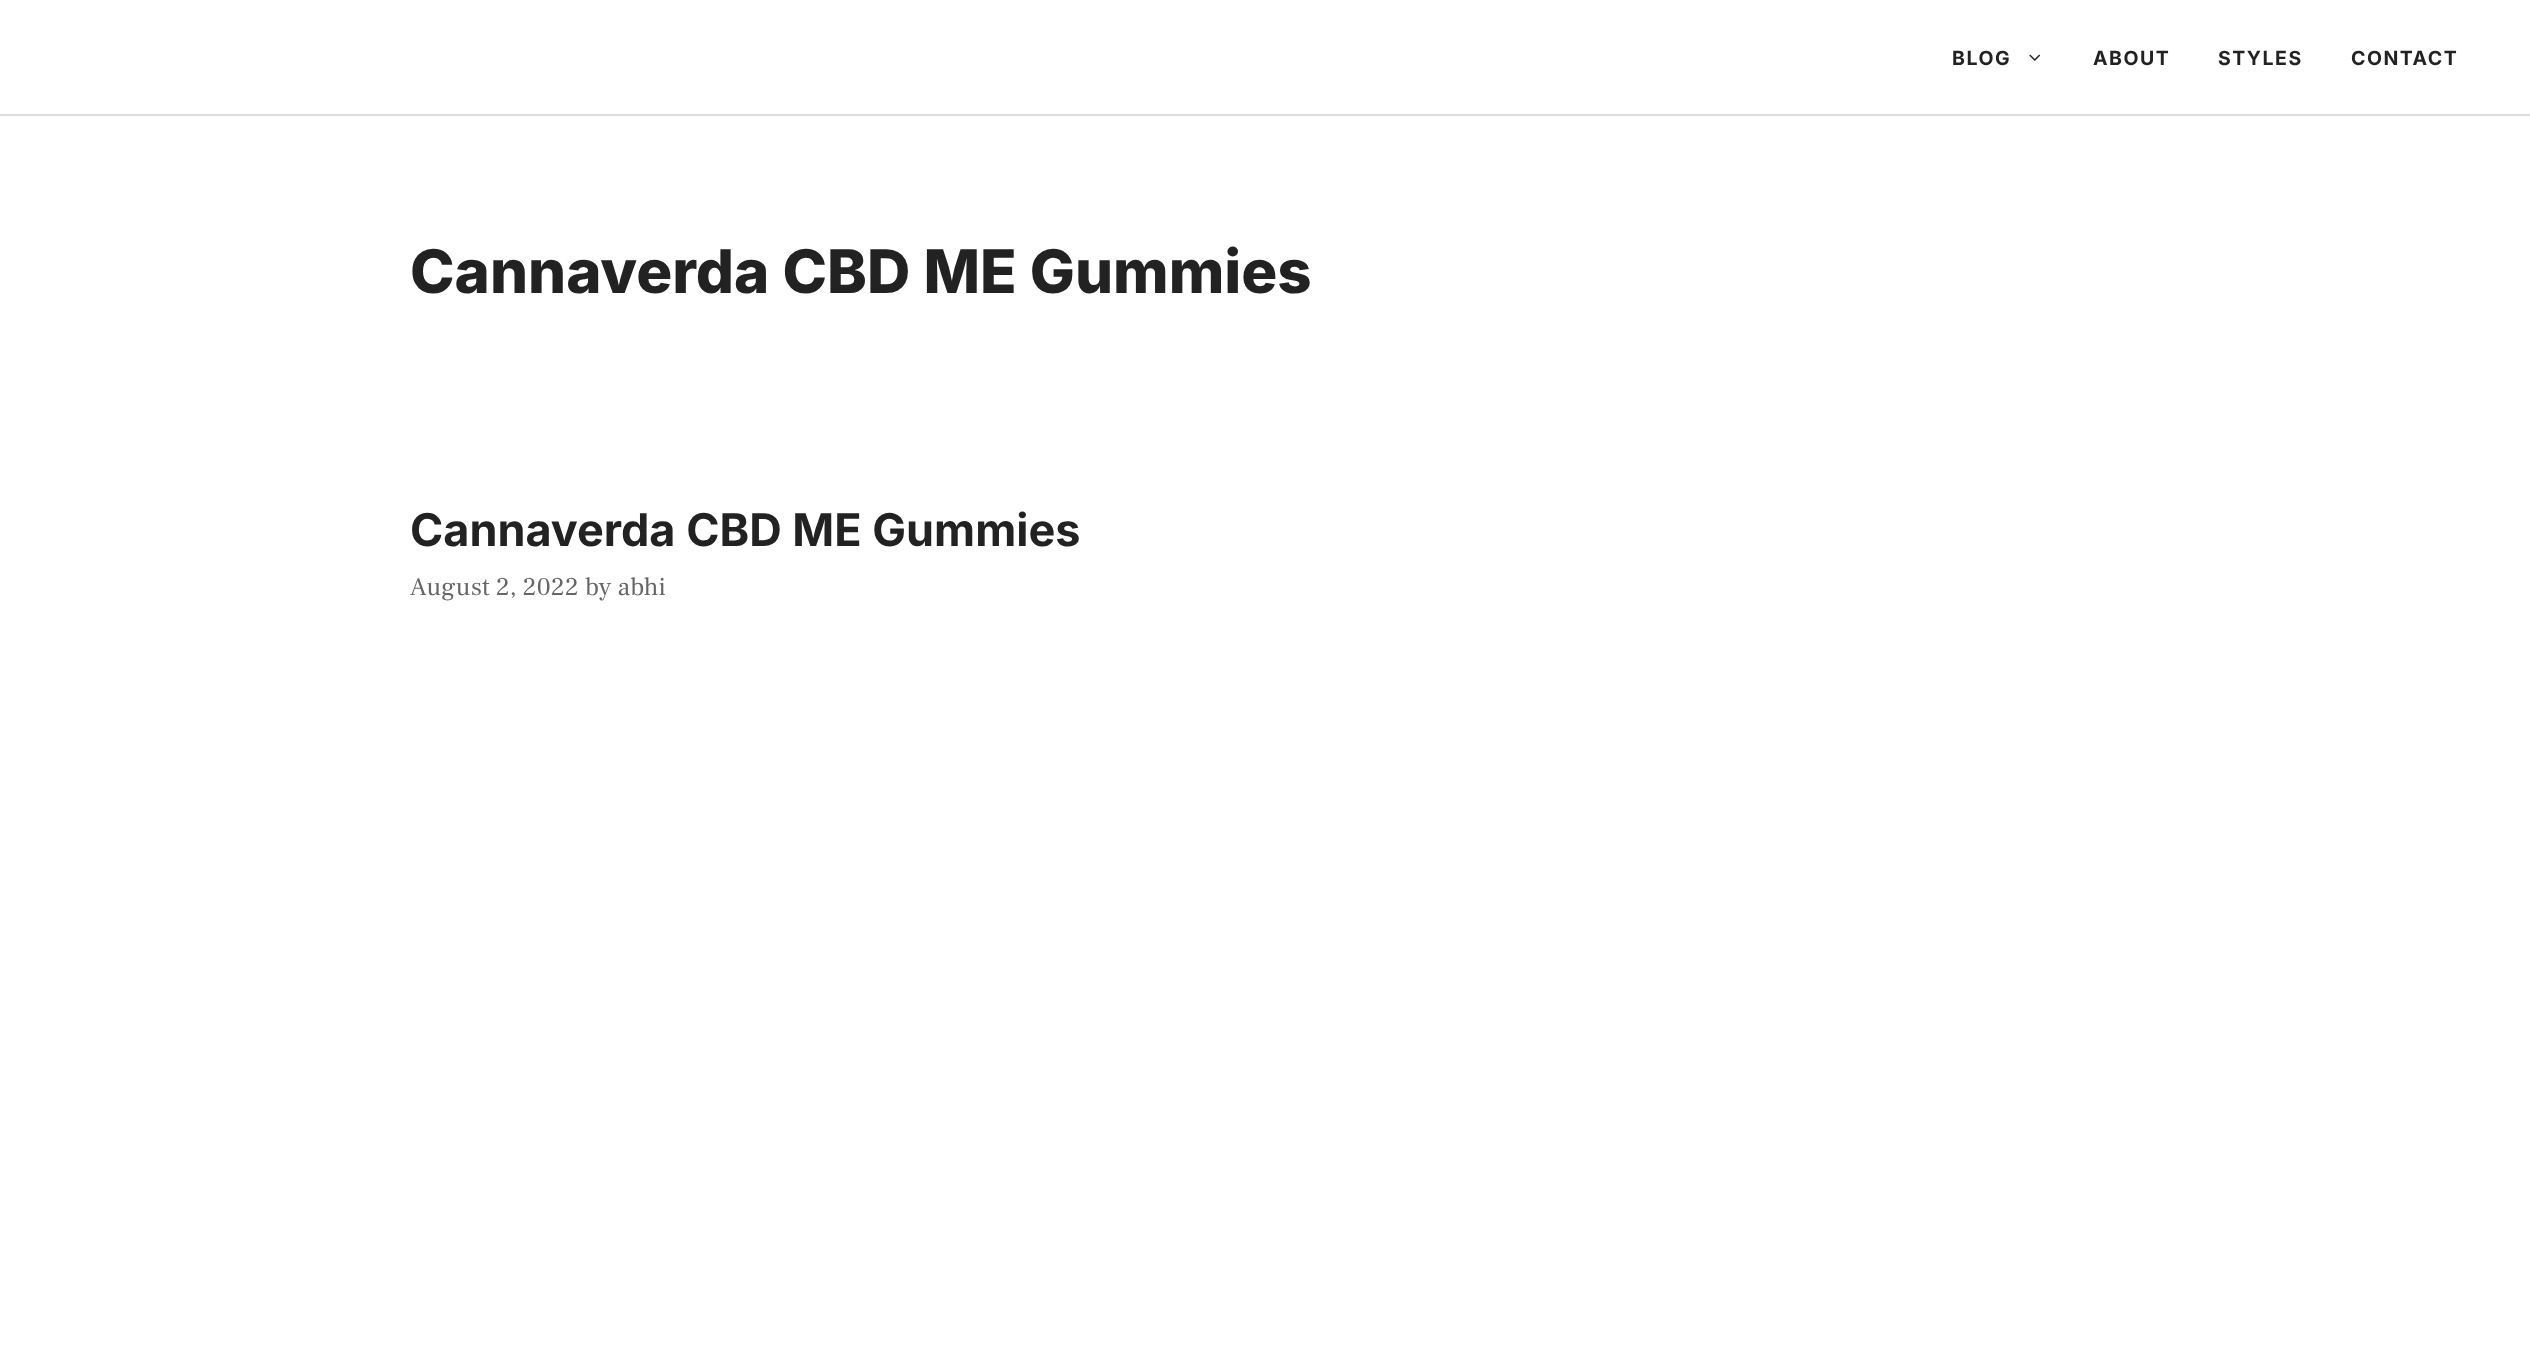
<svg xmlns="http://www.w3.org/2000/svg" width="2530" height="1368">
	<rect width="100%" height="100%" fill="#FFFFFF" />
	<rect x="0" y="114" width="2530" height="2" fill="#DDDDDD" />
	<text x="1952" y="65" font-family="Inter" font-size="19.5" font-weight="700" letter-spacing="1.5" fill="#222222">BLOG</text>
	<image x="2029" y="54" width="12" height="7" href="assets/img1.png" />
	<g font-family="Inter" font-size="19.5" font-weight="700" letter-spacing="1.5" fill="#222222">
		<text x="2093" y="65">ABOUT</text>
		<text x="2218" y="65">STYLES</text>
		<text x="2351" y="65">CONTACT</text>
	</g>
	<text x="410" y="293" font-family="Inter" font-size="60" font-weight="800" fill="#222222">Cannaverda CBD ME Gummies</text>
	<text x="410" y="546" font-family="Inter" font-size="45" font-weight="700" fill="#222222">Cannaverda CBD ME Gummies</text>
	<text x="410" y="595" font-family="Frank Ruhl Libre" font-size="25.5" fill="#666666">August 2, 2022 by abhi</text>
</svg>
